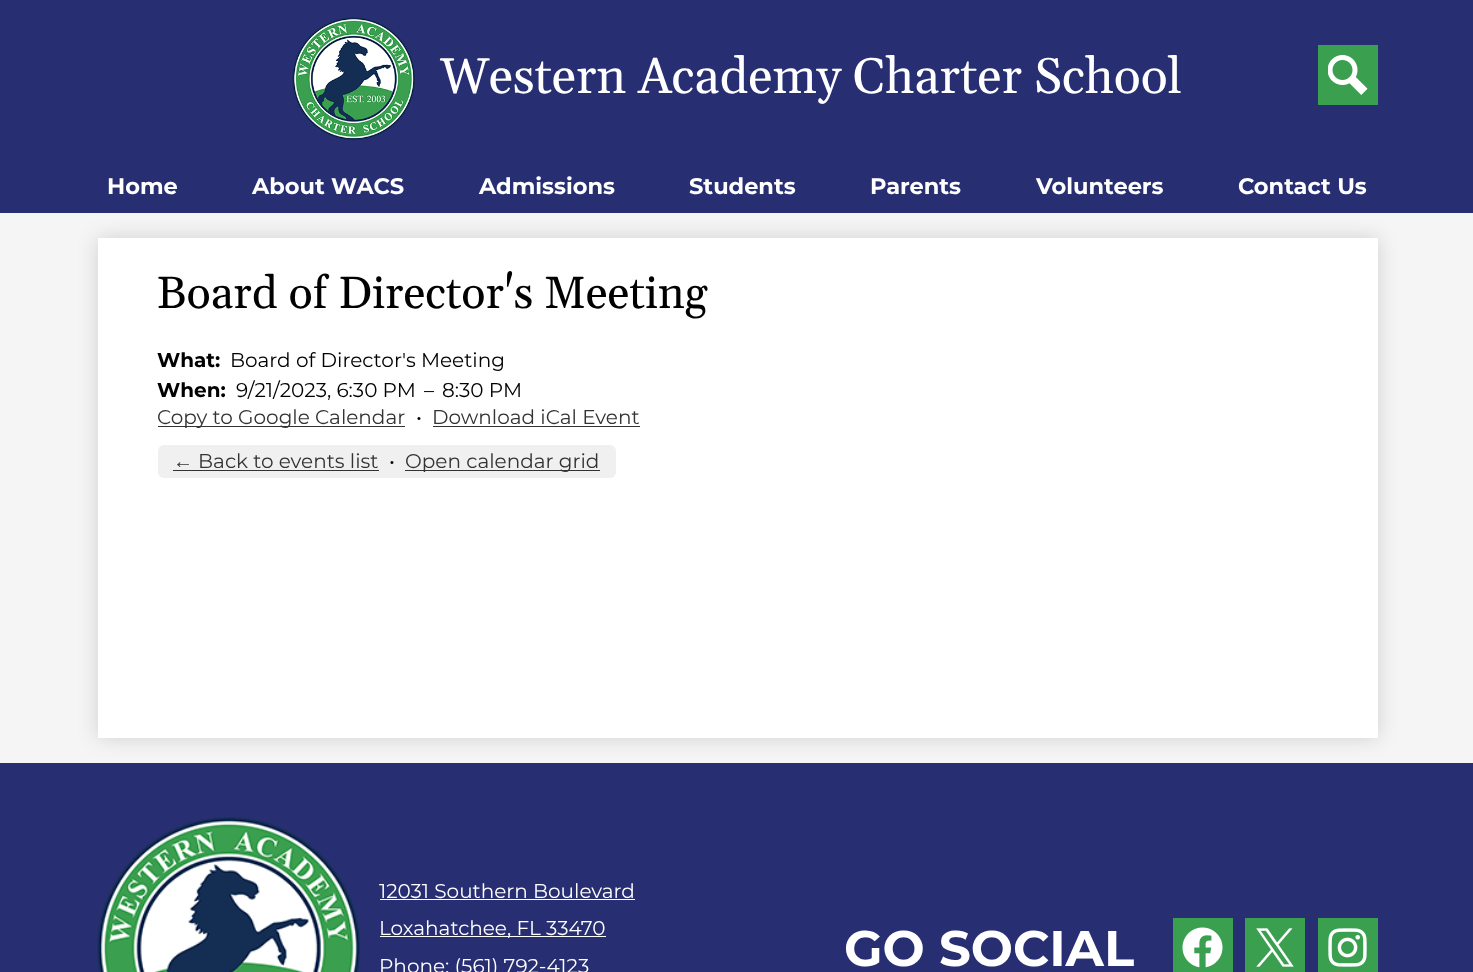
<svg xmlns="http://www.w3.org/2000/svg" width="1473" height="972">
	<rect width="100%" height="100%" fill="#F5F5F5" />
	<rect x="0" y="763" width="1473" height="209" fill="#272E71" />
	<rect x="98" y="238" width="1280" height="500" fill="#000000" fill-opacity="0.15" filter="blur(10px)" />
	<rect x="0" y="0" width="1473" height="213" fill="#272E71" />
	<image x="292" y="17" width="123" height="123" href="assets/img1.png" />
	<text x="440" y="93" font-family="Gelasio" font-size="50" fill="#FFFFFF">Western Academy Charter School</text>
	<rect x="1318" y="45" width="60" height="60" fill="#3A9F4F" />
	<image x="1328" y="55" width="40" height="40" href="assets/img2.png" />
	<g font-family="Montserrat" font-size="22.5" font-weight="700" fill="#FFFFFF">
		<text x="107" y="194">Home</text>
		<text x="252" y="194">About WACS</text>
		<text x="479" y="194">Admissions</text>
		<text x="689" y="194">Students</text>
		<text x="870" y="194">Parents</text>
		<text x="1036" y="194">Volunteers</text>
		<text x="1238" y="194">Contact Us</text>
	</g>
	<rect x="98" y="238" width="1280" height="500" fill="#FFFFFF" />
	<text x="157" y="308" font-family="Gelasio" font-size="45" fill="#000000">Board of Director's Meeting</text>
	<text x="157" y="367" font-family="Montserrat" font-size="20" font-weight="700" fill="#000000">What:</text>
	<text x="230" y="367" font-family="Montserrat" font-size="20" fill="#000000">Board of Director's Meeting</text>
	<text x="157" y="397" font-family="Montserrat" font-size="20" font-weight="700" fill="#000000">When:</text>
	<g font-family="Montserrat" font-size="20" fill="#000000">
		<text x="236" y="397">9/21/2023, 6:30 PM</text>
		<text x="424" y="397">–</text>
		<text x="442" y="397">8:30 PM</text>
	</g>
	<rect x="158" y="426" width="247" height="1" fill="#333333" />
	<text x="157" y="424" font-family="Montserrat" font-size="20" fill="#333333">Copy to Google Calendar</text>
	<text x="416" y="424" font-family="Montserrat" font-size="20" fill="#000000">•</text>
	<text x="432" y="424" font-family="Montserrat" font-size="20" fill="#333333">Download iCal Event</text>
	<rect x="433" y="426" width="207" height="1" fill="#333333" />
	<rect x="158" y="445" width="458" height="33" rx="6" fill="#F0F0F0" />
	<text x="173" y="468" font-family="Liberation Sans" font-size="20" fill="#333333">←</text>
	<rect x="173" y="470" width="206" height="1" fill="#333333" />
	<text x="198" y="468" font-family="Montserrat" font-size="20" fill="#333333">Back to events list</text>
	<text x="389" y="468" font-family="Montserrat" font-size="20" fill="#000000">•</text>
	<rect x="405" y="470" width="195" height="1" fill="#333333" />
	<text x="405" y="468" font-family="Montserrat" font-size="20" fill="#333333">Open calendar grid</text>
	<image x="97" y="817" width="263" height="155" href="assets/img3.png" />
	<text x="379" y="898" font-family="Montserrat" font-size="20" fill="#FFFFFF">12031 Southern Boulevard</text>
	<rect x="380" y="899" width="255" height="1" fill="#FFFFFF" />
	<rect x="380" y="936" width="226" height="1" fill="#FFFFFF" />
	<g font-family="Montserrat" font-size="20" fill="#FFFFFF">
		<text x="379" y="935">Loxahatchee, FL 33470</text>
		<text x="379" y="973">Phone: (561) 792-4123</text>
	</g>
	<text x="844" y="966" font-family="Montserrat" font-size="50" font-weight="700" fill="#FFFFFF">GO SOCIAL</text>
	<rect x="1173" y="918" width="60" height="54" fill="#3A9F4F" />
	<image x="1182" y="927" width="41" height="41" href="assets/img4.png" />
	<rect x="1245" y="918" width="60" height="54" fill="#3A9F4F" />
	<image x="1256" y="928" width="38" height="39" href="assets/img5.png" />
	<rect x="1318" y="918" width="60" height="54" fill="#3A9F4F" />
	<image x="1328" y="928" width="39" height="39" href="assets/img6.png" />
</svg>
